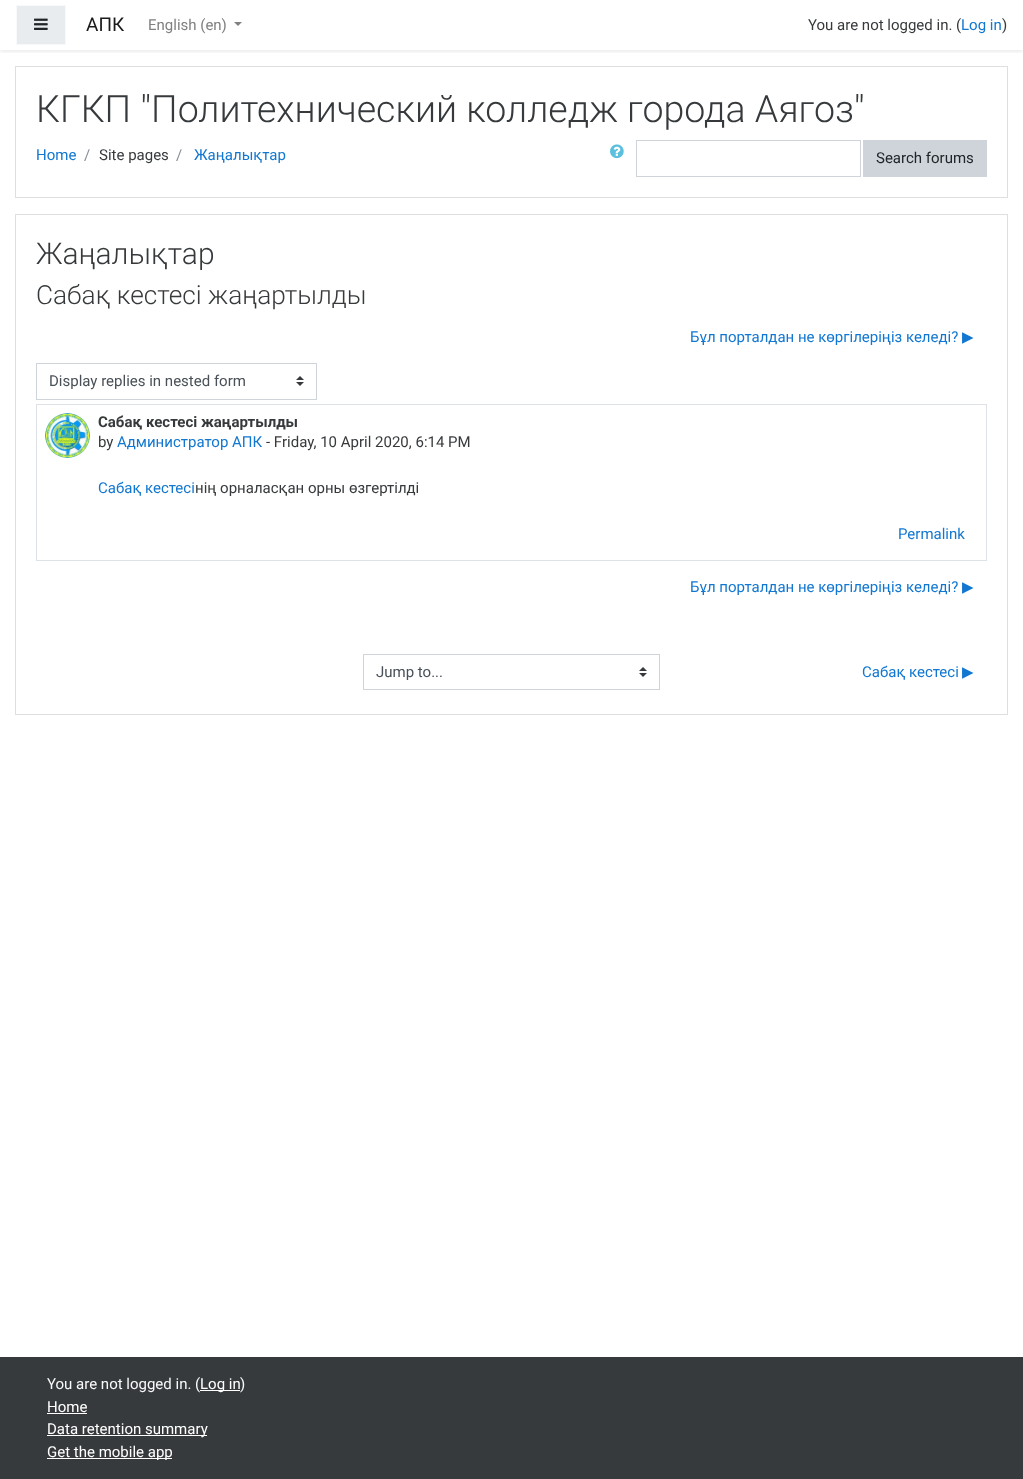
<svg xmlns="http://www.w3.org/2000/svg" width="1023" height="1479">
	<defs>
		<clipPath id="clip1"><rect x="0" y="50" width="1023" height="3" /></clipPath>
	</defs>
	<rect width="100%" height="100%" fill="#FFFFFF" />
	<g clip-path="url(#clip1)">
		<rect x="0" y="2" width="1023" height="50" fill="#000000" fill-opacity="0.08" filter="blur(2px)" />
	</g>
	<rect x="16.5" y="5.5" width="49" height="39" fill="#E9ECEF" stroke="#F8F9FA" />
	<image x="34" y="18" width="14" height="12" href="assets/img1.png" />
	<text x="86" y="31" font-family="Roboto" font-size="19" fill="#1A1A1A">АПК</text>
	<text x="148" y="30" font-family="Roboto" font-size="15" fill="#808080">English (en)</text>
	<path d="M234 22H242L238 26Z" fill="#808080" />
	<text x="808" y="30" font-family="Roboto" font-size="15" fill="#373A3C">You are not logged in. (</text>
	<text x="961" y="30" font-family="Roboto" font-size="15" fill="#1177D1">Log in</text>
	<text x="1002" y="30" font-family="Roboto" font-size="15" fill="#373A3C">)</text>
	<rect x="15.5" y="66.5" width="992" height="131" fill="none" stroke="#DFDFDF" />
	<text x="36" y="122" font-family="Roboto" font-size="37.5" font-weight="300" fill="#373A3C">КГКП "Политехнический колледж города Аягоз"</text>
	<text x="36" y="160" font-family="Roboto" font-size="15" fill="#1177D1">Home</text>
	<text x="84" y="160" font-family="Roboto" font-size="15" fill="#868E96">/</text>
	<text x="99" y="160" font-family="Roboto" font-size="15" fill="#373A3C">Site pages</text>
	<text x="176" y="160" font-family="Roboto" font-size="15" fill="#868E96">/</text>
	<text x="194" y="160" font-family="Roboto" font-size="15" fill="#1177D1">Жаңалықтар</text>
	<image x="610" y="144" width="14" height="15" href="assets/img2.png" />
	<rect x="636.5" y="140.5" width="224" height="36" fill="none" stroke="#CED4DA" />
	<rect x="863" y="140" width="124" height="37" fill="#CED4DA" />
	<text x="876" y="163" font-family="Roboto" font-size="15" fill="#212529">Search forums</text>
	<rect x="15.5" y="214.5" width="992" height="500" fill="none" stroke="#DFDFDF" />
	<text x="36" y="264" font-family="Roboto" font-size="30" font-weight="300" fill="#373A3C">Жаңалықтар</text>
	<text x="36" y="304" font-family="Roboto" font-size="26.25" font-weight="300" fill="#373A3C">Сабақ кестесі жаңартылды</text>
	<text x="690" y="342" font-family="Roboto" font-size="15" fill="#1177D1">Бұл порталдан не көргілеріңіз келеді?</text>
	<text x="962" y="342" font-family="DejaVu Sans" font-size="15" fill="#1177D1">▶︎</text>
	<image x="296" y="376" width="8" height="10" href="assets/img3.png" />
	<rect x="36.5" y="363.5" width="280" height="36" fill="none" stroke="#CED4DA" />
	<text x="49" y="386" font-family="Roboto" font-size="15" fill="#495057">Display replies in nested form</text>
	<rect x="36.5" y="404.5" width="950" height="156" fill="none" stroke="#DEE2E6" />
	<image x="45" y="413" width="45" height="45" href="assets/img4.png" />
	<text x="98" y="427" font-family="Roboto" font-size="15" font-weight="700" fill="#373A3C">Сабақ кестесі жаңартылды</text>
	<text x="98" y="447" font-family="Roboto" font-size="15" fill="#373A3C">by</text>
	<text x="117" y="447" font-family="Roboto" font-size="15" fill="#1177D1">Администратор АПК</text>
	<text x="266" y="447" font-family="Roboto" font-size="15" fill="#373A3C">- Friday, 10 April 2020, 6:14 PM</text>
	<text x="98" y="493" font-family="Roboto" font-size="15" fill="#1177D1">Сабақ кестесі</text>
	<text x="195" y="493" font-family="Roboto" font-size="15" fill="#373A3C">нің орналасқан орны өзгертілді</text>
	<g font-family="Roboto" font-size="15" fill="#1177D1">
		<text x="898" y="539">Permalink</text>
		<text x="690" y="592">Бұл порталдан не көргілеріңіз келеді?</text>
	</g>
	<text x="962" y="592" font-family="DejaVu Sans" font-size="15" fill="#1177D1">▶︎</text>
	<image x="639" y="667" width="8" height="10" href="assets/img3.png" />
	<rect x="363.5" y="654.5" width="296" height="35" fill="none" stroke="#CED4DA" />
	<text x="376" y="677" font-family="Roboto" font-size="15" fill="#495057">Jump to...</text>
	<text x="862" y="677" font-family="Roboto" font-size="15" fill="#1177D1">Сабақ кестесі</text>
	<text x="962" y="677" font-family="DejaVu Sans" font-size="15" fill="#1177D1">▶︎</text>
	<rect x="0" y="1357" width="1023" height="122" fill="#373A3C" />
	<text x="47" y="1389" font-family="Roboto" font-size="15" fill="#F8F9FA">You are not logged in. (</text>
	<rect x="200" y="1390" width="40" height="1" fill="#FFFFFF" />
	<text x="200" y="1389" font-family="Roboto" font-size="15" fill="#FFFFFF">Log in</text>
	<text x="240" y="1389" font-family="Roboto" font-size="15" fill="#F8F9FA">)</text>
	<text x="47" y="1412" font-family="Roboto" font-size="15" fill="#FFFFFF">Home</text>
	<rect x="47" y="1413" width="40" height="1" fill="#FFFFFF" />
	<rect x="47" y="1435" width="160" height="1" fill="#FFFFFF" />
	<text x="47" y="1434" font-family="Roboto" font-size="15" fill="#FFFFFF">Data retention summary</text>
	<rect x="47" y="1458" width="125" height="1" fill="#FFFFFF" />
	<text x="47" y="1457" font-family="Roboto" font-size="15" fill="#FFFFFF">Get the mobile app</text>
</svg>
